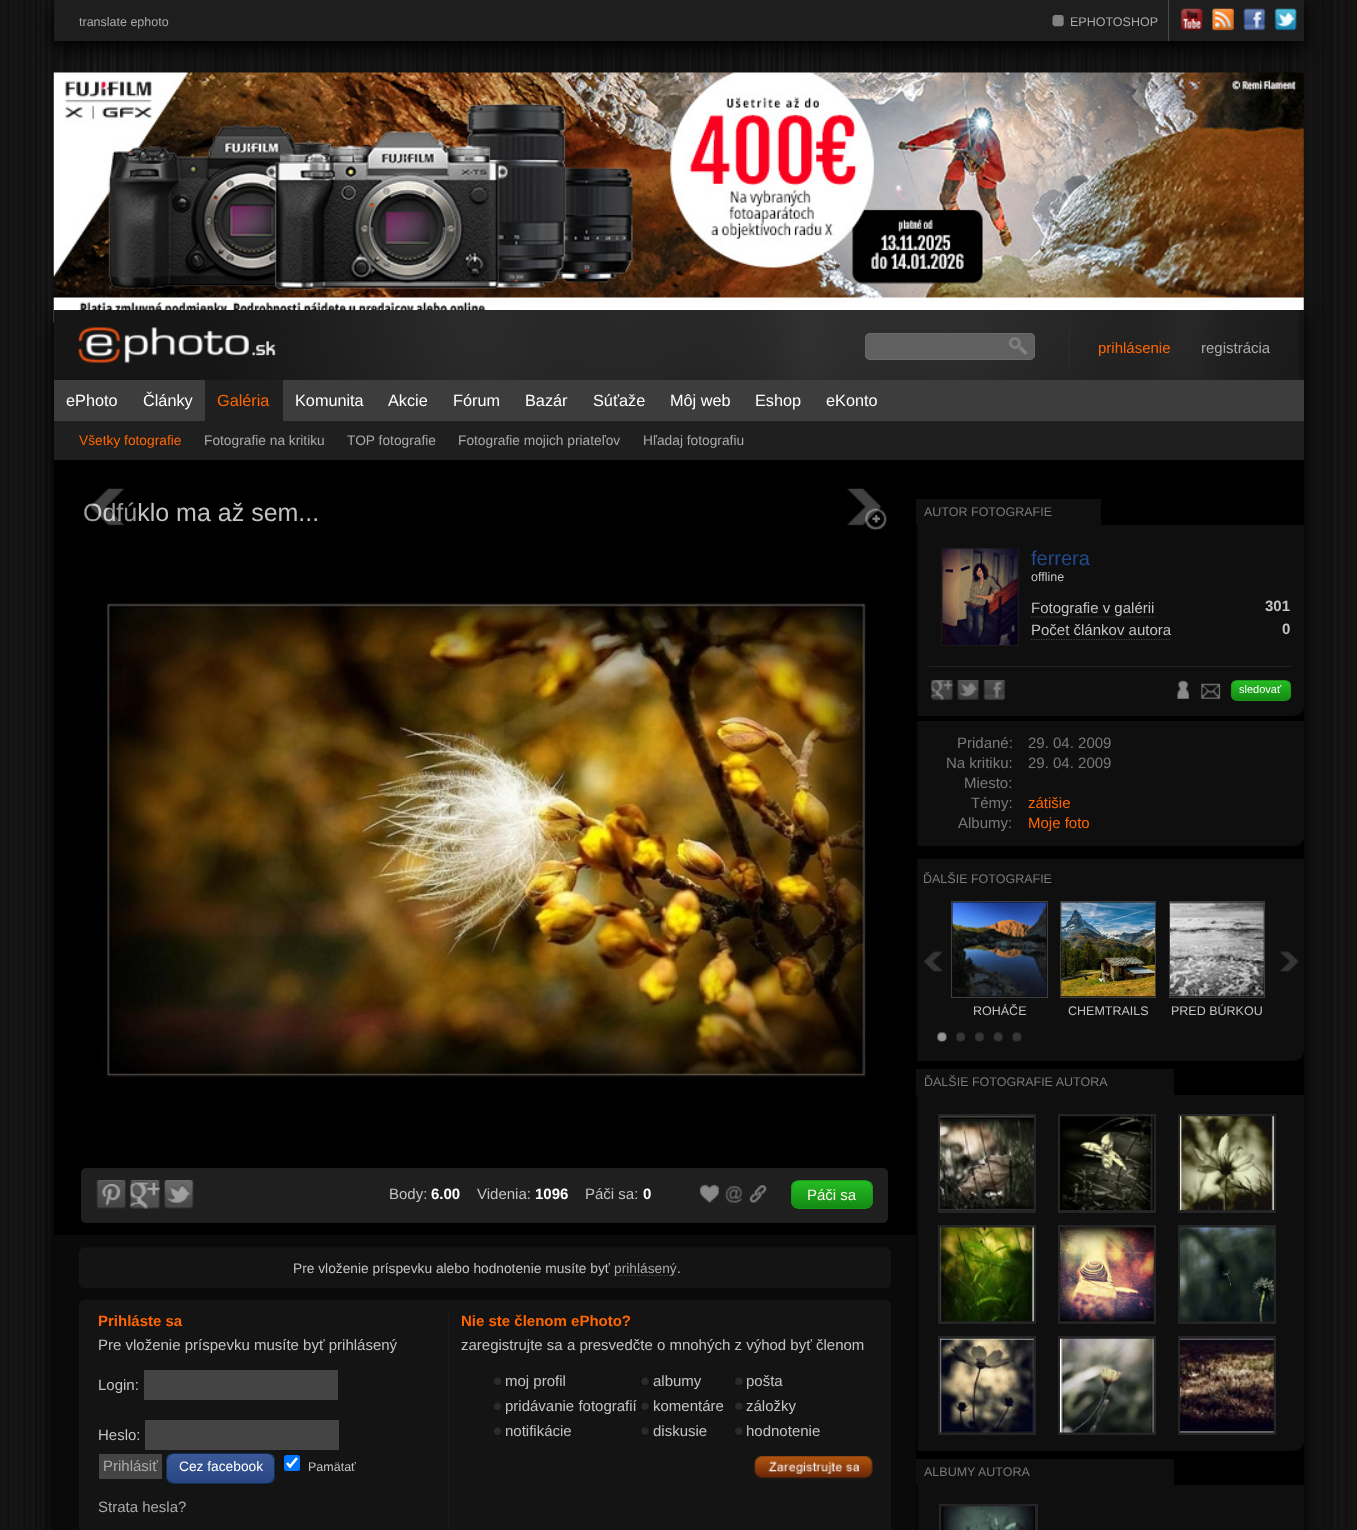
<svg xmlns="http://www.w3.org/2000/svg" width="1357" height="1530">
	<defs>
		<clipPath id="clip1"><rect x="791" y="1180" width="82" height="29" rx="8" /></clipPath>
		<linearGradient id="g1" gradientUnits="userSpaceOnUse" x1="793" y1="1181" x2="793" y2="1208"><stop offset="0" stop-color="#25BC24" /><stop offset="1" stop-color="#148A13" /></linearGradient>
		<clipPath id="clip2"><rect x="166" y="1453" width="109" height="31" rx="8" /></clipPath>
		<linearGradient id="g2" gradientUnits="userSpaceOnUse" x1="168" y1="1454" x2="168" y2="1483"><stop offset="0" stop-color="#3B5997" /><stop offset="1" stop-color="#284683" /></linearGradient>
		<clipPath id="clip3"><rect x="1231" y="680" width="60" height="21" rx="6" /></clipPath>
		<linearGradient id="g3" gradientUnits="userSpaceOnUse" x1="1233" y1="681" x2="1233" y2="700"><stop offset="0" stop-color="#25BC24" /><stop offset="1" stop-color="#148A13" /></linearGradient>
	</defs>
	<rect width="100%" height="100%" fill="#FFFFFF" />
	<image x="0" y="0" width="1357" height="1530" href="assets/img1.png" />
	<rect x="54" y="316" width="1250" height="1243" fill="#000000" filter="blur(9.5px)" />
	<image x="53" y="72" width="1251" height="251" href="assets/img7.png" />
	<rect x="54" y="6" width="1250" height="42" fill="#000000" filter="blur(9.5px)" />
	<rect x="54" y="0" width="1250" height="41" fill="#1E1E1E" />
	<text x="79" y="26" font-family="Liberation Sans" font-size="12.5" fill="#AAAAAA">translate ephoto</text>
	<image x="1052" y="15" width="12" height="12" href="assets/img2.png" />
	<text x="1070" y="26" font-family="Liberation Sans" font-size="12.5" fill="#AAAAAA">EPHOTOSHOP</text>
	<rect x="1168" y="0" width="1" height="41" fill="#494949" />
	<image x="1181" y="8" width="22" height="23" href="assets/img3.png" />
	<image x="1212" y="8" width="22" height="23" href="assets/img4.png" />
	<image x="1243" y="8" width="23" height="23" href="assets/img5.png" />
	<image x="1274" y="8" width="23" height="23" href="assets/img6.png" />
	<rect x="1299" y="310" width="5" height="70" fill="#161616" />
	<image x="53" y="310" width="1246" height="70" href="assets/img8.png" />
	<image x="78" y="327" width="198" height="36" href="assets/img9.png" />
	<rect x="865" y="333" width="170" height="27" rx="5" fill="#606060" />
	<image x="1008" y="337" width="20" height="18" href="assets/img10.png" />
	<rect x="865.5" y="333.5" width="169" height="26" rx="4.5" fill="none" stroke="#6A6A6A" />
	<rect x="1069" y="323" width="1" height="43" fill="#2D2D2D" />
	<text x="1098" y="353" font-family="Liberation Sans" font-size="15" fill="#FF6600">prihlásenie</text>
	<text x="1201" y="353" font-family="Liberation Sans" font-size="15" fill="#AAAAAA">registrácia</text>
	<rect x="54" y="380" width="1250" height="41" fill="#3D3D3D" />
	<g font-family="Liberation Sans" font-size="16.25" fill="#FFFFFF">
		<text x="66" y="406">ePhoto</text>
		<text x="143" y="406">Články</text>
	</g>
	<rect x="205" y="380" width="78" height="41" fill="#1F1F1F" />
	<text x="217" y="406" font-family="Liberation Sans" font-size="16.25" fill="#FF6600">Galéria</text>
	<rect x="54" y="421" width="1250" height="39" fill="#1F1F1F" />
	<text x="79" y="445" font-family="Liberation Sans" font-size="13.75" fill="#FF6600">Všetky fotografie</text>
	<g font-family="Liberation Sans" font-size="13.75" fill="#AAAAAA">
		<text x="204" y="445">Fotografie na kritiku</text>
		<text x="347" y="445">TOP fotografie</text>
		<text x="458" y="445">Fotografie mojich priateľov</text>
		<text x="643" y="445">Hľadaj fotografiu</text>
	</g>
	<g font-family="Liberation Sans" font-size="16.25" fill="#FFFFFF">
		<text x="295" y="406">Komunita</text>
		<text x="388" y="406">Akcie</text>
		<text x="453" y="406">Fórum</text>
		<text x="525" y="406">Bazár</text>
		<text x="593" y="406">Súťaže</text>
		<text x="670" y="406">Môj web</text>
		<text x="755" y="406">Eshop</text>
		<text x="826" y="406">eKonto</text>
	</g>
	<rect x="54" y="460" width="1250" height="1025" fill="#000000" />
	<text x="83" y="521" font-family="Liberation Sans" font-size="25" fill="#C3C3C3">Odfúklo ma až sem...</text>
	<image x="847" y="488" width="35" height="38" href="assets/img27.png" />
	<image x="865" y="508" width="22" height="23" href="assets/img11.png" />
	<image x="87" y="603" width="780" height="475" href="assets/img12.png" />
	<rect x="81" y="1168" width="807" height="55" rx="5" fill="#1F1F1F" />
	<image x="96" y="1180" width="30" height="29" href="assets/img13.png" />
	<image x="129" y="1180" width="32" height="29" href="assets/img14.png" />
	<image x="163" y="1180" width="31" height="29" href="assets/img15.png" />
	<text x="389" y="1199" font-family="Liberation Sans" font-size="15" fill="#C3C3C3">Body:</text>
	<text x="431" y="1199" font-family="Liberation Sans" font-size="15" font-weight="700" fill="#FFFFFF">6.00</text>
	<text x="477" y="1199" font-family="Liberation Sans" font-size="15" fill="#C3C3C3">Videnia:</text>
	<text x="535" y="1199" font-family="Liberation Sans" font-size="15" font-weight="700" fill="#FFFFFF">1096</text>
	<text x="585" y="1199" font-family="Liberation Sans" font-size="15" fill="#C3C3C3">Páči sa:</text>
	<text x="643" y="1199" font-family="Liberation Sans" font-size="15" font-weight="700" fill="#FFFFFF">0</text>
	<image x="699" y="1184" width="20" height="19" href="assets/img16.png" />
	<image x="725" y="1186" width="18" height="17" href="assets/img17.png" />
	<image x="749" y="1185" width="18" height="18" href="assets/img18.png" />
	<g clip-path="url(#clip1)">
		<rect x="791" y="1181" width="82" height="27" fill="url(#g1)" />
	</g>
	<rect x="791.5" y="1180.5" width="81" height="28" rx="7.5" fill="none" stroke="#1B951A" />
	<text x="807" y="1200" font-family="Liberation Sans" font-size="15" fill="#FEF4E9">Páči sa</text>
	<rect x="54" y="1235" width="862" height="295" fill="#0A0A0A" />
	<rect x="79" y="1251" width="812" height="37" fill="#141414" />
	<image x="79" y="1284" width="812" height="4" href="assets/img19.png" />
	<image x="79" y="1247" width="812" height="4" href="assets/img20.png" />
	<text x="293" y="1273" font-family="Liberation Sans" font-size="13.75" fill="#C3C3C3">Pre vloženie príspevku alebo hodnotenie musíte byť</text>
	<path d="M614 1275.5H676" fill="none" stroke="#464646" stroke-width="1.2" stroke-dasharray="1.25 1.25" />
	<text x="614" y="1273" font-family="Liberation Sans" font-size="13.75" fill="#AAAAAA">prihlásený</text>
	<text x="677" y="1273" font-family="Liberation Sans" font-size="13.75" fill="#C3C3C3">.</text>
	<rect x="79" y="1303" width="812" height="227" fill="#141414" />
	<image x="79" y="1300" width="812" height="3" href="assets/img21.png" />
	<rect x="448" y="1313" width="1" height="217" fill="#1C1C1C" />
	<text x="98" y="1326" font-family="Liberation Sans" font-size="15" font-weight="700" fill="#FF6600">Prihláste sa</text>
	<g font-family="Liberation Sans" font-size="15" fill="#C3C3C3">
		<text x="98" y="1350">Pre vloženie príspevku musíte byť prihlásený</text>
		<text x="98" y="1390">Login:</text>
	</g>
	<rect x="144" y="1370" width="194" height="30" fill="#444444" />
	<text x="98" y="1440" font-family="Liberation Sans" font-size="15" fill="#C3C3C3">Heslo:</text>
	<rect x="145" y="1420" width="194" height="30" fill="#444444" />
	<rect x="99" y="1454" width="63" height="25" fill="#444444" />
	<text x="103" y="1471" font-family="Liberation Sans" font-size="15" fill="#AAAAAA">Prihlásiť</text>
	<g clip-path="url(#clip2)">
		<rect x="166" y="1454" width="109" height="29" fill="url(#g2)" />
	</g>
	<rect x="166.5" y="1453.5" width="108" height="30" rx="7.5" fill="none" stroke="#112E58" />
	<text x="179" y="1471" font-family="Liberation Sans" font-size="13.75" fill="#FFFFFF">Cez facebook</text>
	<rect x="284" y="1455" width="16" height="16" rx="2.5" fill="#0075FF" />
	<path d="M287 1463L290 1466.5L297 1458" fill="none" stroke="#FFFFFF" stroke-width="2.6" />
	<text x="308" y="1471" font-family="Liberation Sans" font-size="12.5" fill="#C3C3C3">Pamätať</text>
	<text x="98" y="1512" font-family="Liberation Sans" font-size="15" fill="#AAAAAA">Strata hesla?</text>
	<text x="461" y="1326" font-family="Liberation Sans" font-size="15" font-weight="700" fill="#FF6600">Nie ste členom ePhoto?</text>
	<text x="461" y="1350" font-family="Liberation Sans" font-size="15" fill="#C3C3C3">zaregistrujte sa a presvedčte o mnohých z výhod byť členom</text>
	<image x="493" y="1377" width="9" height="9" href="assets/img22.png" />
	<text x="505" y="1386" font-family="Liberation Sans" font-size="15" fill="#C3C3C3">moj profil</text>
	<image x="640" y="1377" width="10" height="9" href="assets/img23.png" />
	<text x="653" y="1386" font-family="Liberation Sans" font-size="15" fill="#C3C3C3">albumy</text>
	<image x="734" y="1377" width="9" height="9" href="assets/img24.png" />
	<text x="746" y="1386" font-family="Liberation Sans" font-size="15" fill="#C3C3C3">pošta</text>
	<image x="493" y="1402" width="9" height="9" href="assets/img22.png" />
	<text x="505" y="1411" font-family="Liberation Sans" font-size="15" fill="#C3C3C3">pridávanie fotografií</text>
	<image x="640" y="1402" width="10" height="9" href="assets/img23.png" />
	<text x="653" y="1411" font-family="Liberation Sans" font-size="15" fill="#C3C3C3">komentáre</text>
	<image x="734" y="1402" width="9" height="9" href="assets/img24.png" />
	<text x="746" y="1411" font-family="Liberation Sans" font-size="15" fill="#C3C3C3">záložky</text>
	<image x="493" y="1427" width="9" height="9" href="assets/img22.png" />
	<text x="505" y="1436" font-family="Liberation Sans" font-size="15" fill="#C3C3C3">notifikácie</text>
	<image x="640" y="1427" width="10" height="9" href="assets/img23.png" />
	<text x="653" y="1436" font-family="Liberation Sans" font-size="15" fill="#C3C3C3">diskusie</text>
	<image x="734" y="1427" width="9" height="9" href="assets/img24.png" />
	<text x="746" y="1436" font-family="Liberation Sans" font-size="15" fill="#C3C3C3">hodnotenie</text>
	<image x="753" y="1456" width="120" height="23" href="assets/img25.png" />
	<image x="83" y="488" width="56" height="38" href="assets/img26.png" />
	<image x="917" y="708" width="387" height="8" href="assets/img28.png" />
	<rect x="916" y="499" width="185" height="26" fill="#0F0F0F" />
	<text x="924" y="516" font-family="Liberation Sans" font-size="12.5" fill="#7A7A7A">AUTOR FOTOGRAFIE</text>
	<rect x="916" y="525" width="388" height="183" fill="#0F0F0F" />
	<image x="916" y="525" width="2" height="183" href="assets/img29.png" />
	<rect x="941.5" y="548.5" width="77" height="97" fill="none" stroke="#1A1A1A" />
	<image x="942" y="548" width="76" height="97" href="assets/img30.png" />
	<text x="1031" y="565" font-family="Liberation Sans" font-size="20" fill="#234A8C">ferrera</text>
	<text x="1031" y="581" font-family="Liberation Sans" font-size="12.5" fill="#C3C3C3">offline</text>
	<path d="M1031 617H1155" fill="none" stroke="#464646" stroke-width="1.2" stroke-dasharray="1.25 1.25" />
	<text x="1031" y="613" font-family="Liberation Sans" font-size="15" fill="#C3C3C3">Fotografie v galérii</text>
	<text x="1265" y="611" font-family="Liberation Sans" font-size="15" font-weight="700" fill="#C3C3C3">301</text>
	<text x="1031" y="635" font-family="Liberation Sans" font-size="15" fill="#C3C3C3">Počet článkov autora</text>
	<path d="M1031 639.5H1171" fill="none" stroke="#464646" stroke-width="1.2" stroke-dasharray="1.25 1.25" />
	<text x="1282" y="634" font-family="Liberation Sans" font-size="15" font-weight="700" fill="#C3C3C3">0</text>
	<rect x="929" y="666" width="362" height="1" fill="#232323" />
	<image x="931" y="680" width="22" height="21" href="assets/img31.png" />
	<image x="957" y="680" width="22" height="20" href="assets/img32.png" />
	<image x="983" y="680" width="23" height="21" href="assets/img33.png" />
	<image x="1177" y="680" width="12" height="19" href="assets/img34.png" />
	<image x="1201" y="683" width="20" height="16" href="assets/img35.png" />
	<g clip-path="url(#clip3)">
		<rect x="1231" y="681" width="60" height="19" fill="url(#g3)" />
	</g>
	<rect x="1231.5" y="680.5" width="59" height="20" rx="5.5" fill="none" stroke="#1B951A" />
	<text x="1239" y="693" font-family="Liberation Sans" font-size="11" fill="#FFFFFF">sledovať</text>
	<image x="917" y="838" width="387" height="8" href="assets/img28.png" />
	<rect x="916" y="721" width="388" height="117" fill="#0F0F0F" />
	<image x="916" y="721" width="2" height="117" href="assets/img36.png" />
	<g font-family="Liberation Sans" font-size="15" fill="#7A7A7A">
		<text x="957" y="748">Pridané:</text>
		<text x="1028" y="748">29. 04. 2009</text>
		<text x="946" y="768">Na kritiku:</text>
		<text x="1028" y="768">29. 04. 2009</text>
		<text x="964" y="788">Miesto:</text>
		<text x="971" y="808">Témy:</text>
	</g>
	<text x="1028" y="808" font-family="Liberation Sans" font-size="15" fill="#FF6600">zátišie</text>
	<text x="958" y="828" font-family="Liberation Sans" font-size="15" fill="#7A7A7A">Albumy:</text>
	<text x="1028" y="828" font-family="Liberation Sans" font-size="15" fill="#FF6600">Moje foto</text>
	<image x="917" y="1053" width="387" height="8" href="assets/img28.png" />
	<rect x="916" y="859" width="388" height="194" fill="#0F0F0F" />
	<image x="916" y="858" width="387" height="195" href="assets/img37.png" />
	<text x="923" y="883" font-family="Liberation Sans" font-size="12.5" fill="#7A7A7A">ĎALŠIE FOTOGRAFIE</text>
	<image x="923" y="951" width="20" height="21" href="assets/img38.png" />
	<image x="1280" y="951" width="19" height="21" href="assets/img39.png" />
	<image x="937" y="1032" width="10" height="10" href="assets/img40.png" />
	<image x="956" y="1032" width="9" height="10" href="assets/img41.png" />
	<image x="975" y="1032" width="9" height="10" href="assets/img42.png" />
	<image x="993" y="1032" width="10" height="10" href="assets/img43.png" />
	<image x="1012" y="1032" width="10" height="10" href="assets/img44.png" />
	<rect x="951.5" y="901.5" width="96" height="96" fill="none" stroke="#3E3E3E" />
	<image x="952" y="902" width="95" height="95" href="assets/img45.png" />
	<text x="973" y="1015" font-family="Liberation Sans" font-size="12.5" fill="#C3C3C3">ROHÁČE</text>
	<rect x="1060.5" y="901.5" width="95" height="96" fill="none" stroke="#3E3E3E" />
	<image x="1061" y="902" width="94" height="95" href="assets/img46.png" />
	<text x="1068" y="1015" font-family="Liberation Sans" font-size="12.5" fill="#C3C3C3">CHEMTRAILS</text>
	<rect x="1169.5" y="901.5" width="95" height="96" fill="none" stroke="#3E3E3E" />
	<image x="1170" y="902" width="94" height="95" href="assets/img47.png" />
	<text x="1171" y="1015" font-family="Liberation Sans" font-size="12.5" fill="#C3C3C3">PRED BÚRKOU</text>
	<image x="917" y="1443" width="387" height="8" href="assets/img28.png" />
	<rect x="916" y="1069" width="258" height="26" fill="#0F0F0F" />
	<text x="924" y="1086" font-family="Liberation Sans" font-size="12.5" fill="#7A7A7A">ĎALŠIE FOTOGRAFIE AUTORA</text>
	<rect x="916" y="1095" width="388" height="348" fill="#0F0F0F" />
	<image x="916" y="1095" width="2" height="348" href="assets/img48.png" />
	<rect x="939.5" y="1115.5" width="95" height="96" fill="none" stroke="#252525" stroke-width="3" />
	<image x="940" y="1116" width="94" height="94" href="assets/img49.png" />
	<rect x="1059.5" y="1115.5" width="95" height="96" fill="none" stroke="#252525" stroke-width="3" />
	<image x="1060" y="1116" width="94" height="94" href="assets/img50.png" />
	<rect x="1179.5" y="1115.5" width="95" height="96" fill="none" stroke="#252525" stroke-width="3" />
	<image x="1180" y="1116" width="94" height="94" href="assets/img51.png" />
	<rect x="939.5" y="1226.5" width="95" height="96" fill="none" stroke="#252525" stroke-width="3" />
	<image x="940" y="1227" width="94" height="95" href="assets/img52.png" />
	<rect x="1059.5" y="1226.5" width="95" height="96" fill="none" stroke="#252525" stroke-width="3" />
	<image x="1060" y="1227" width="94" height="95" href="assets/img53.png" />
	<rect x="1179.5" y="1226.5" width="95" height="96" fill="none" stroke="#252525" stroke-width="3" />
	<image x="1180" y="1227" width="94" height="95" href="assets/img54.png" />
	<rect x="939.5" y="1337.5" width="95" height="96" fill="none" stroke="#252525" stroke-width="3" />
	<image x="940" y="1338" width="94" height="95" href="assets/img55.png" />
	<rect x="1059.5" y="1337.5" width="95" height="96" fill="none" stroke="#252525" stroke-width="3" />
	<image x="1060" y="1338" width="94" height="95" href="assets/img56.png" />
	<rect x="1179.5" y="1337.5" width="95" height="96" fill="none" stroke="#252525" stroke-width="3" />
	<image x="1180" y="1338" width="94" height="95" href="assets/img57.png" />
	<rect x="916" y="1459" width="258" height="26" fill="#0F0F0F" />
	<text x="924" y="1476" font-family="Liberation Sans" font-size="12.5" fill="#7A7A7A">ALBUMY AUTORA</text>
	<rect x="916" y="1485" width="388" height="45" fill="#0F0F0F" />
	<image x="916" y="1485" width="2" height="45" href="assets/img58.png" />
	<rect x="940.5" y="1505.5" width="96" height="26" fill="none" stroke="#252525" stroke-width="3" />
	<image x="941" y="1506" width="94" height="24" href="assets/img59.png" />
</svg>
